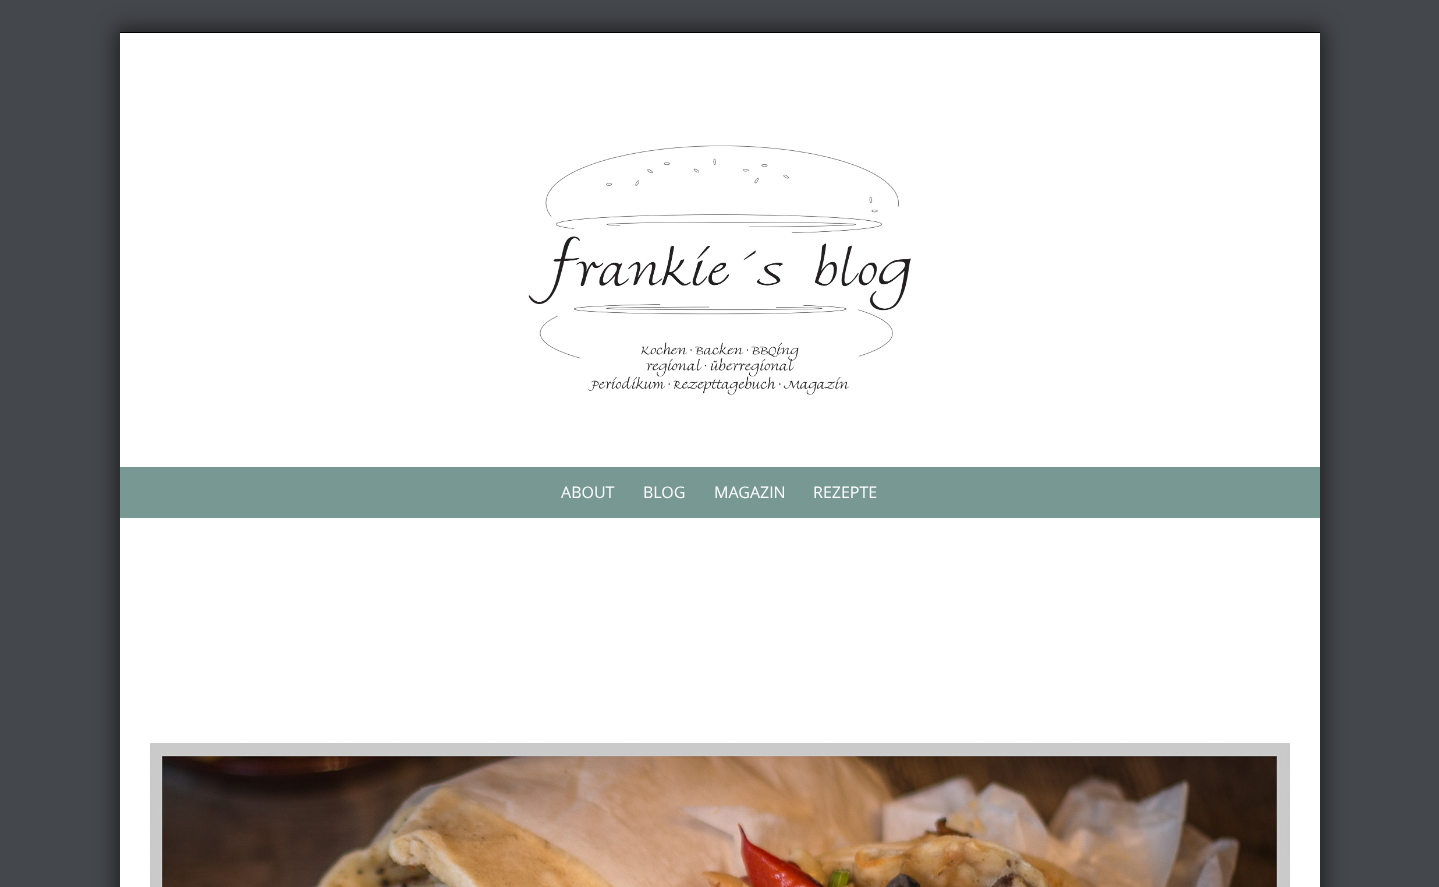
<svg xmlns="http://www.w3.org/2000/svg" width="1439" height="887">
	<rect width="100%" height="100%" fill="#44474C" />
	<rect x="115" y="27" width="1210" height="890" fill="#000000" fill-opacity="0.5" filter="blur(10px)" />
	<rect x="120" y="32" width="1200" height="1" fill="#000000" />
	<rect x="120" y="33" width="1200" height="434" fill="#FFFFFF" />
	<image x="528" y="145" width="383" height="250" href="assets/img1.png" />
	<rect x="120" y="467" width="1200" height="51" fill="#789993" />
	<g font-family="Open Sans" font-size="16" fill="#FFFFFF">
		<text x="561" y="498">ABOUT</text>
		<text x="643" y="498">BLOG</text>
		<text x="714" y="498">MAGAZIN</text>
		<text x="813" y="498">REZEPTE</text>
	</g>
	<rect x="120" y="518" width="1200" height="369" fill="#FFFFFF" />
	<image x="150" y="743" width="1140" height="144" href="assets/img2.png" />
</svg>
